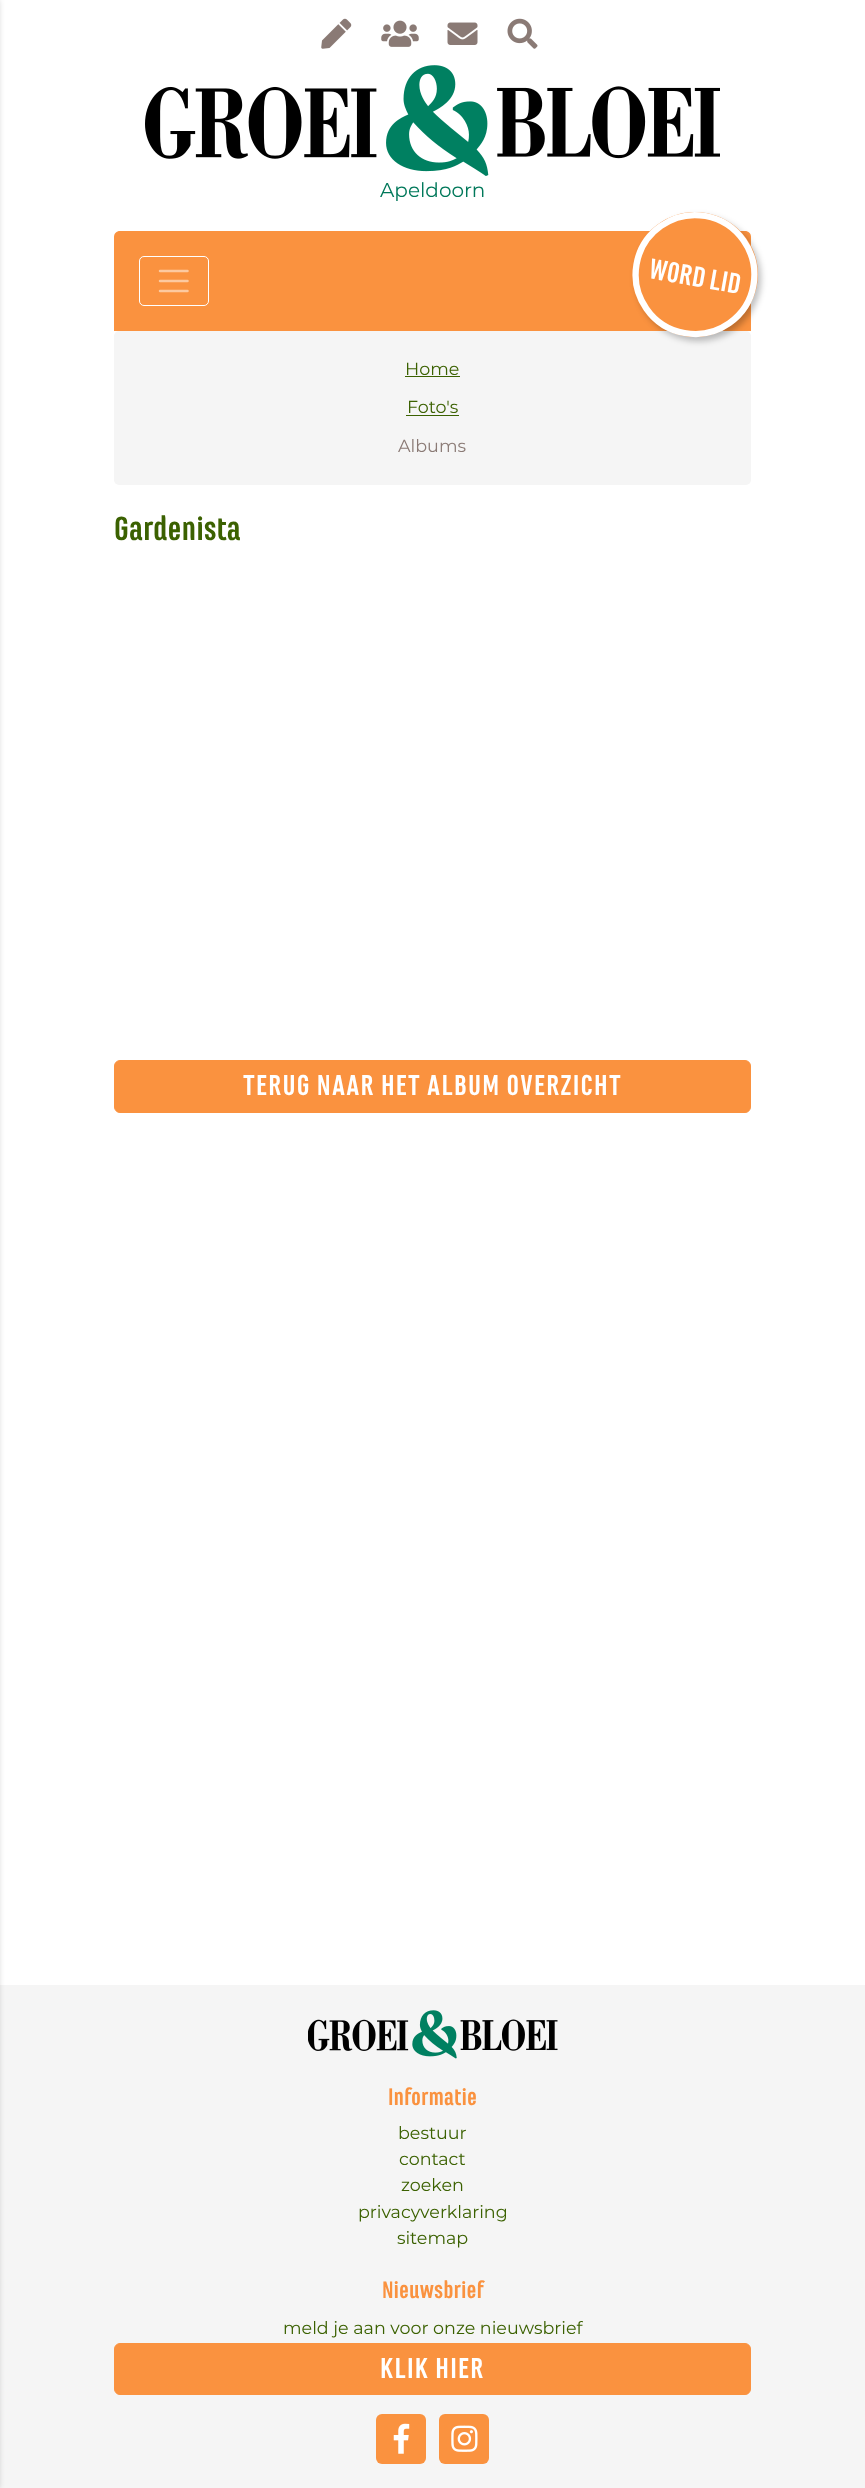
<svg xmlns="http://www.w3.org/2000/svg" width="865" height="2488">
	<rect width="100%" height="100%" fill="#FFFFFF" />
	<image x="321" y="18" width="31" height="31" href="assets/img1.png" />
	<image x="381" y="20" width="38" height="27" href="assets/img2.png" />
	<image x="447" y="22" width="31" height="23" href="assets/img3.png" />
	<image x="507" y="18" width="31" height="31" href="assets/img4.png" />
	<image x="145" y="65" width="575" height="111" href="assets/img5.png" />
	<text x="380" y="197" font-family="Montserrat" font-size="20" fill="#00785A">Apeldoorn</text>
	<path d="M120 231H745C748.5 231 751 233.5 751 237V331H114V237C114 233.5 116.5 231 120 231Z" fill="#FA923F" />
	<rect x="0" y="1985" width="865" height="503" fill="#F5F5F5" />
	<rect x="-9" y="0" width="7" height="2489" fill="#000000" fill-opacity="0.25" filter="blur(3px)" />
	<rect x="139.5" y="256.5" width="69" height="49" rx="4.5" fill="none" stroke="#FFFFFF" />
	<path d="M160 271H187.5M160 281H187.5M160 291H187.5" fill="none" stroke="#FDC99F" stroke-width="2.5" stroke-linecap="round" />
	<rect x="114" y="331" width="637" height="154" rx="5" fill="#F5F5F5" />
	<rect x="636" y="216" width="125" height="125" rx="62.5" fill="#000000" fill-opacity="0.25" filter="blur(3px)" />
	<path d="M706 213C740 219 763 251 757 285C751 319 718 342 684 336C650 330 627 298 633 264C639 230 672 207 706 213Z" fill="#FA923F" />
	<path d="M705.5 216C737.5 222 759 252.5 753.5 285C748 317 717 339 684.5 333C652.5 327.5 631 296.5 636.5 264.5C642 232 673 210.5 705.5 216Z" fill="none" stroke="#FFFFFF" stroke-width="6.3" />
	<text x="648" y="278" transform="rotate(10 648 278)" font-family="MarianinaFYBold" font-size="30" font-weight="700" fill="#FFFFFF">WORD LID</text>
	<text x="405" y="375" font-family="Montserrat" font-size="17.5" fill="#3B6101">Home</text>
	<rect x="405" y="376" width="55" height="1" fill="#3B6101" />
	<text x="407" y="413" font-family="Montserrat" font-size="17.5" fill="#3B6101">Foto's</text>
	<rect x="406" y="415" width="53" height="1" fill="#3B6101" />
	<text x="398" y="452" font-family="Montserrat" font-size="17.5" fill="#8A7A75">Albums</text>
	<text x="114" y="540" font-family="MarianinaFYBold" font-size="35" font-weight="700" fill="#3B6101">Gardenista</text>
	<rect x="114.5" y="1060.5" width="636" height="52" rx="5.5" fill="#FA923F" stroke="#FA923F" />
	<text x="243" y="1095" font-family="MarianinaFYBold" font-size="30" font-weight="700" letter-spacing="1.25" fill="#FFFFFF">TERUG NAAR HET ALBUM OVERZICHT</text>
	<image x="308" y="2010" width="250" height="49" href="assets/img6.png" />
	<text x="388" y="2105" font-family="MarianinaFYBold" font-size="25" font-weight="700" fill="#FA923F">Informatie</text>
	<g font-family="Montserrat" font-size="17.5" fill="#3B6101">
		<text x="398" y="2139">bestuur</text>
		<text x="399" y="2165">contact</text>
		<text x="401" y="2191">zoeken</text>
		<text x="358" y="2218">privacyverklaring</text>
		<text x="397" y="2244">sitemap</text>
	</g>
	<text x="382" y="2298" font-family="MarianinaFYBold" font-size="25" font-weight="700" fill="#FA923F">Nieuwsbrief</text>
	<text x="283" y="2334" font-family="Montserrat" font-size="17.5" fill="#3B6101">meld je aan voor onze nieuwsbrief</text>
	<rect x="114.5" y="2343.5" width="636" height="51" rx="5.5" fill="#FA923F" stroke="#FA923F" />
	<text x="380" y="2378" font-family="MarianinaFYBold" font-size="30" font-weight="700" letter-spacing="1.25" fill="#FFFFFF">KLIK HIER</text>
	<rect x="376" y="2414" width="50" height="50" rx="6" fill="#FA923F" />
	<image x="393" y="2423" width="17" height="31" href="assets/img7.png" />
	<rect x="439" y="2414" width="50" height="50" rx="6" fill="#FA923F" />
	<image x="451" y="2425" width="27" height="27" href="assets/img8.png" />
</svg>
